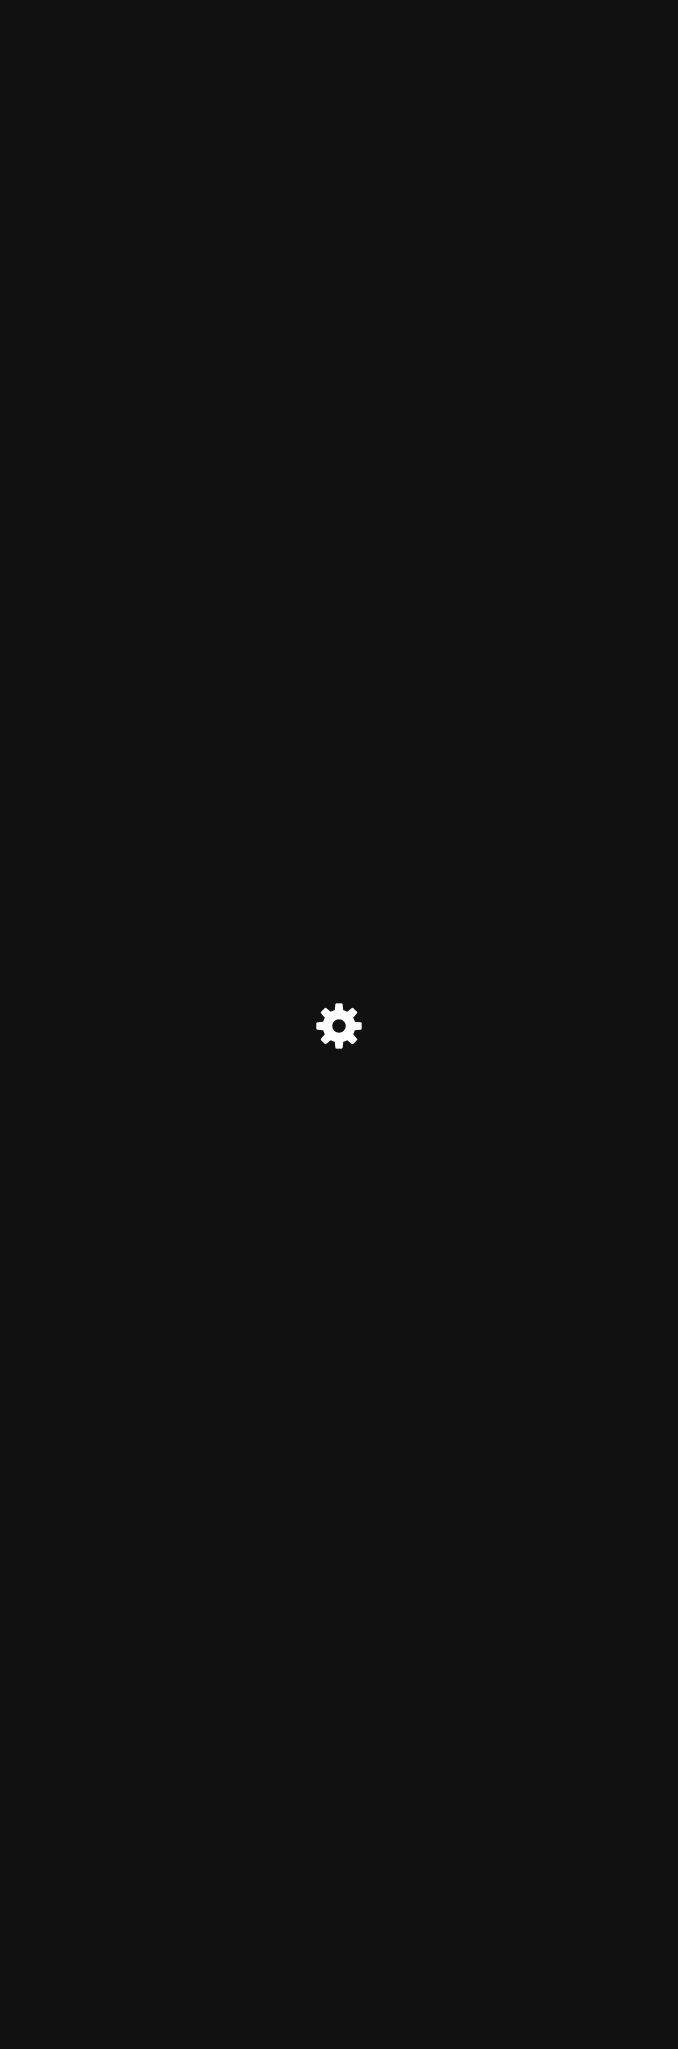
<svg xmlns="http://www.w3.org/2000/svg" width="678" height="2049">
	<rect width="100%" height="100%" fill="#111111" />
	<image x="316" y="1003" width="46" height="46" href="assets/img1.png" />
</svg>
